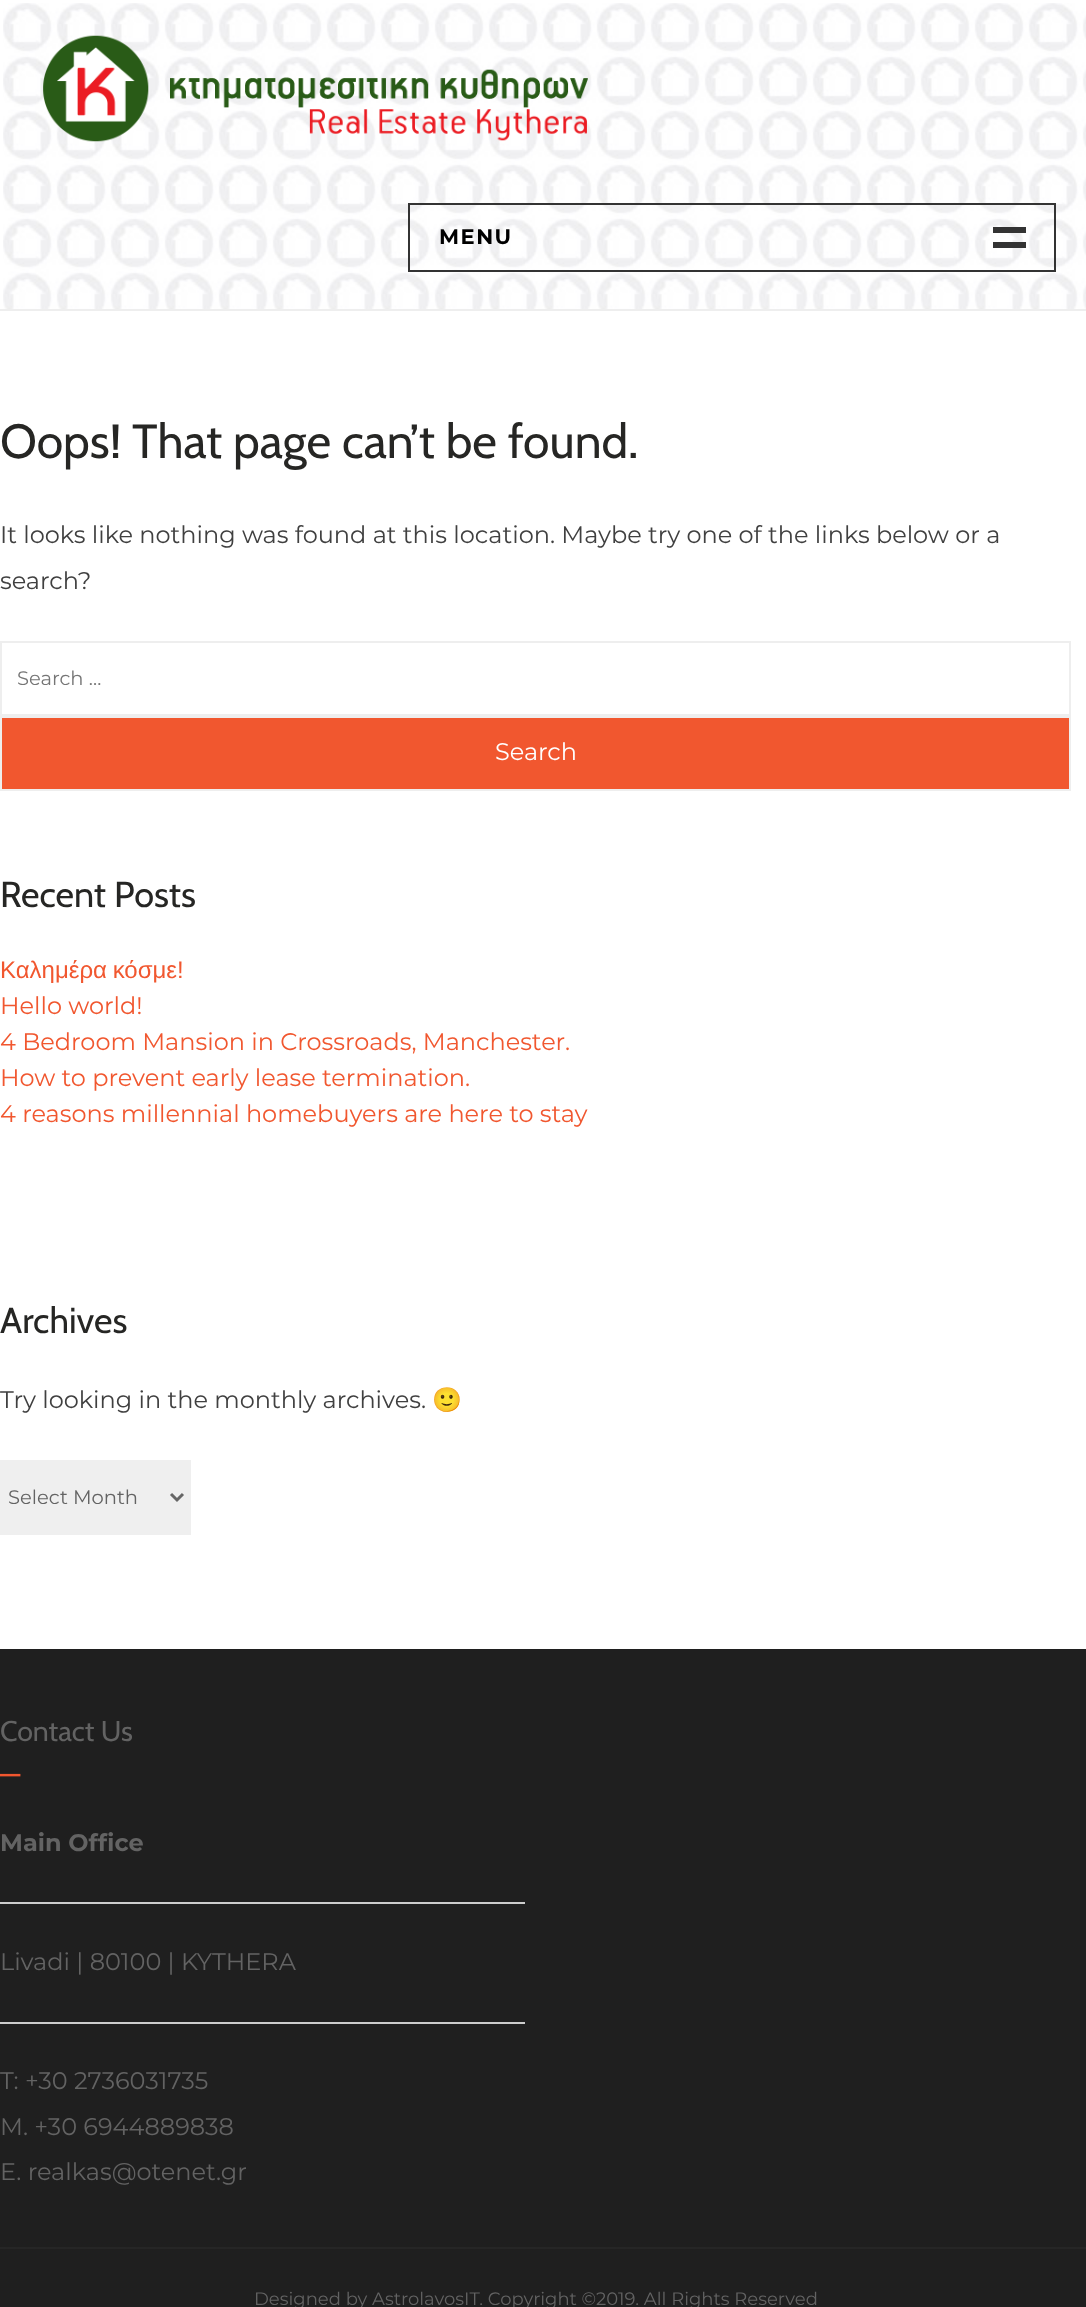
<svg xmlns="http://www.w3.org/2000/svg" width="1086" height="2307">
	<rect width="100%" height="100%" fill="#FFFFFF" />
	<image x="3" y="3" width="1083" height="306" href="assets/img1.png" />
	<rect x="0" y="309" width="1086" height="2" fill="#EEEEEE" />
	<image x="43" y="35" width="545" height="107" href="assets/img2.png" />
	<rect x="409" y="204" width="646" height="67" fill="none" stroke="#333333" stroke-width="2" />
	<text x="439" y="244" font-family="Montserrat" font-size="21" font-weight="700" letter-spacing="1.5" fill="#000000">MENU</text>
	<rect x="993" y="227" width="33" height="6" fill="#333333" />
	<rect x="993" y="242" width="33" height="6" fill="#333333" />
	<text x="0" y="458" font-family="Cabin" font-size="48" fill="#262624">Oops! That page can’t be found.</text>
	<g font-family="Montserrat" font-size="24" fill="#404040">
		<text x="0" y="543">It looks like nothing was found at this location. Maybe try one of the links below or a</text>
		<text x="0" y="589">search?</text>
	</g>
	<rect x="1" y="642" width="1069" height="73" fill="none" stroke="#EEEEEE" stroke-width="2" />
	<text x="17" y="685" font-family="Montserrat" font-size="19.5" fill="#757575">Search …</text>
	<rect x="1" y="717" width="1069" height="73" fill="#F1572F" stroke="#EEEEEE" stroke-width="2" />
	<text x="495" y="760" font-family="Montserrat" font-size="24" fill="#FFFFFF">Search</text>
	<text x="0" y="907" font-family="Cabin" font-size="36" fill="#262624">Recent Posts</text>
	<text x="0" y="978" word-spacing="-1" font-family="Liberation Sans" font-size="24" fill="#F1572F">Καλημέρα κόσμε!</text>
	<g font-family="Montserrat" font-size="24" fill="#F1572F">
		<text x="0" y="1014">Hello world!</text>
		<text x="0" y="1050">4 Bedroom Mansion in Crossroads, Manchester.</text>
		<text x="0" y="1086">How to prevent early lease termination.</text>
		<text x="0" y="1122">4 reasons millennial homebuyers are here to stay</text>
	</g>
	<text x="0" y="1333" font-family="Cabin" font-size="36" fill="#262624">Archives</text>
	<text x="0" y="1408" font-family="Montserrat" font-size="24" fill="#404040">Try looking in the monthly archives.</text>
	<text x="432" y="1408" font-family="Noto Color Emoji" font-size="24" fill="#404040">🙂</text>
	<rect x="0" y="1460" width="191" height="75" fill="#EFEFEF" />
	<path d="M171 1494L177 1500L183 1494" fill="none" stroke="#666666" stroke-width="3" />
	<text x="8" y="1504" font-family="Montserrat" font-size="19.5" fill="#636363">Select Month</text>
	<rect x="0" y="1649" width="1086" height="658" fill="#1F1F1F" />
	<rect x="0" y="2247" width="1086" height="2" fill="#262626" />
	<text x="0" y="1741" font-family="Cabin" font-size="28.5" fill="#636363">Contact Us</text>
	<text x="0" y="1784" font-family="Cabin" font-size="28.5" fill="#F1572F">—</text>
	<text x="0" y="1851" font-family="Montserrat" font-size="24" font-weight="700" fill="#636363">Main Office</text>
	<rect x="0" y="1902" width="525" height="2" fill="#CCCCCC" />
	<text x="0" y="1970" font-family="Montserrat" font-size="24" fill="#636363">Livadi | 80100 | KYTHERA</text>
	<rect x="0" y="2022" width="525" height="2" fill="#CCCCCC" />
	<g font-family="Montserrat" font-size="24" fill="#636363">
		<text x="0" y="2089">T: +30 2736031735</text>
		<text x="0" y="2135">M. +30 6944889838</text>
		<text x="0" y="2180">E. realkas@otenet.gr</text>
	</g>
	<text x="254" y="2305" font-family="Montserrat" font-size="18" fill="#636363">Designed by AstrolavosIT. Copyright ©2019. All Rights Reserved</text>
</svg>
